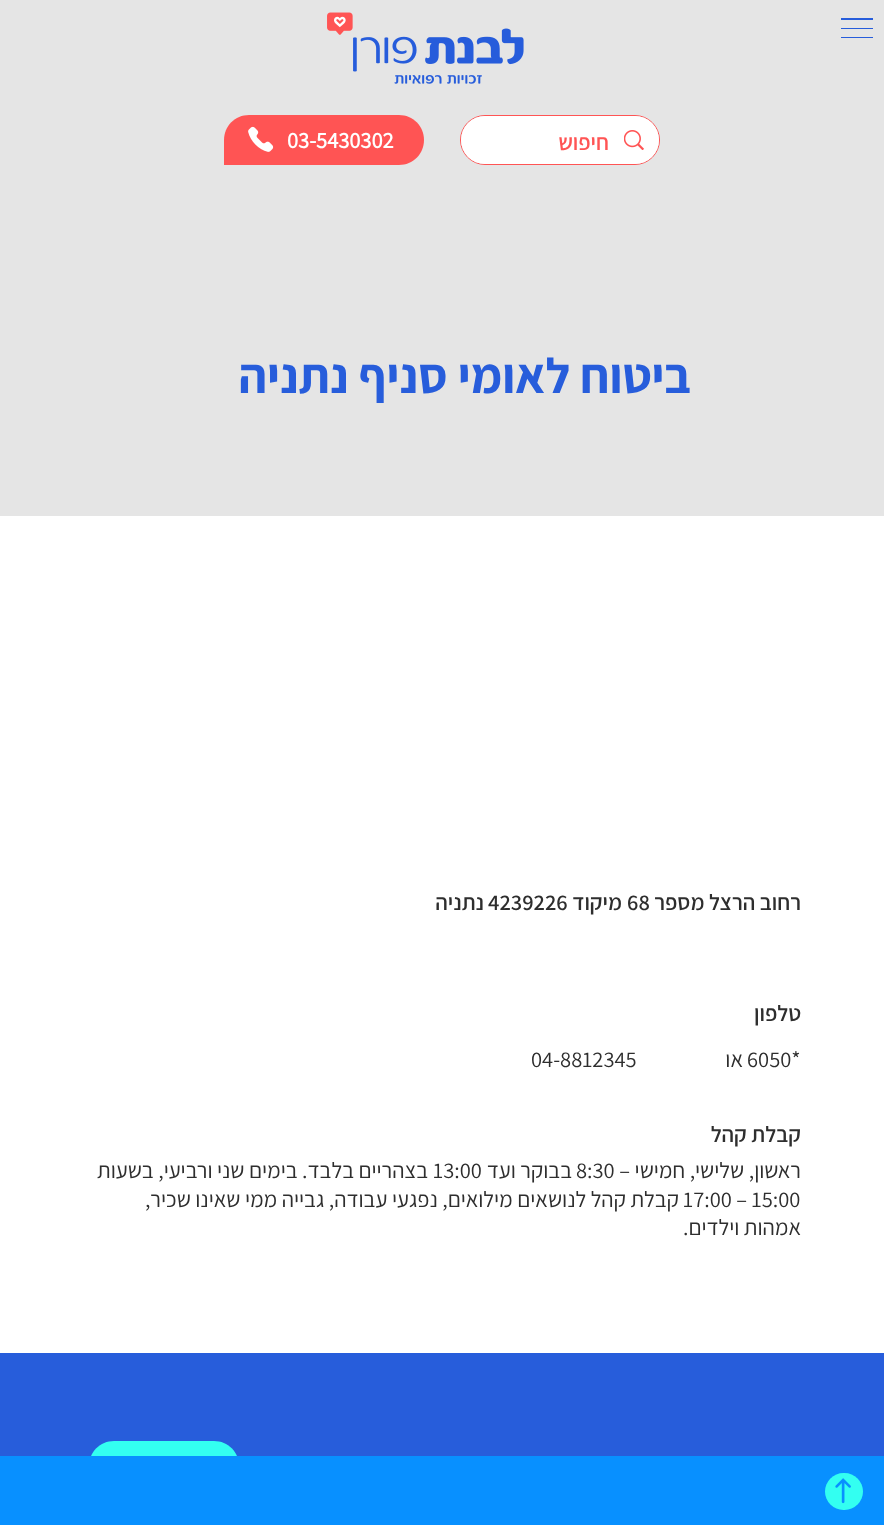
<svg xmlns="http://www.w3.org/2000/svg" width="884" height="1525">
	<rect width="100%" height="100%" fill="#FFFFFF" />
	<rect x="0" y="0" width="884" height="516" fill="#E5E5E5" />
	<rect x="841" y="18" width="32" height="2" fill="#275DDB" />
	<rect x="841" y="28" width="32" height="1" fill="#275DDB" />
	<rect x="841" y="37" width="32" height="1" fill="#275DDB" />
	<image x="327" y="12" width="197" height="72" href="assets/img1.png" />
	<rect x="460.5" y="115.5" width="199" height="49" rx="24.5" fill="none" stroke="#FF5454" />
	<rect x="461" y="116" width="198" height="48" rx="24" fill="#FFFFFF" />
	<image x="624" y="130" width="20" height="20" href="assets/img2.png" />
	<text x="609" y="150" font-family="Assistant" font-size="22.5" font-weight="600" direction="rtl" fill="#FF5454">חיפוש</text>
	<path d="M249 115H399C413 115 424 126 424 140C424 154 413 165 399 165H224V140C224 126 235 115 249 115Z" fill="#FF5454" />
	<text x="287" y="148" font-family="Assistant" font-size="22.5" font-weight="700" fill="#FFFFFF">03-5430302</text>
	<image x="248" y="126" width="26" height="26" href="assets/img3.png" />
	<text x="691" y="393" font-family="'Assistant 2'" font-size="49.4" font-weight="700" direction="rtl" fill="#275DDB">ביטוח לאומי סניף נתניה</text>
	<text x="801" y="910" font-family="Assistant" font-size="22.5" font-weight="600" direction="rtl" fill="#2E2E2E">רחוב הרצל מספר</text>
	<text x="627" y="910" font-family="Assistant" font-size="22.5" font-weight="600" fill="#2E2E2E">68</text>
	<text x="622" y="910" font-family="Assistant" font-size="22.5" font-weight="600" direction="rtl" fill="#2E2E2E">מיקוד</text>
	<text x="488" y="910" font-family="Assistant" font-size="22.5" font-weight="600" fill="#2E2E2E">4239226</text>
	<g font-family="Assistant" font-size="22.5" font-weight="600" direction="rtl" fill="#2E2E2E">
		<text x="484" y="910">נתניה</text>
		<text x="801" y="1021">טלפון</text>
	</g>
	<text x="747" y="1067" font-family="Assistant" font-size="22.5" fill="#2E2E2E">6050*</text>
	<text x="743" y="1067" font-family="Assistant" font-size="22.5" direction="rtl" fill="#2E2E2E">או</text>
	<text x="531" y="1067" font-family="Assistant" font-size="22.5" fill="#2E2E2E">04-8812345</text>
	<text x="801" y="1142" font-family="Assistant" font-size="22.5" font-weight="600" direction="rtl" fill="#2E2E2E">קבלת קהל</text>
	<text x="801" y="1178" font-family="Assistant" font-size="22.5" direction="rtl" fill="#2E2E2E">ראשון, שלישי, חמישי –</text>
	<text x="576" y="1178" font-family="Assistant" font-size="22.5" fill="#2E2E2E">8:30</text>
	<text x="572" y="1178" font-family="Assistant" font-size="22.5" direction="rtl" fill="#2E2E2E">בבוקר ועד</text>
	<text x="433" y="1178" font-family="Assistant" font-size="22.5" fill="#2E2E2E">13:00</text>
	<text x="428" y="1178" font-family="Assistant" font-size="22.5" direction="rtl" fill="#2E2E2E">בצהריים בלבד. בימים שני ורביעי, בשעות</text>
	<text x="683" y="1207" font-family="Assistant" font-size="22.5" fill="#2E2E2E">17:00 – 15:00</text>
	<g font-family="Assistant" font-size="22.5" direction="rtl" fill="#2E2E2E">
		<text x="679" y="1207">קבלת קהל לנושאים מילואים, נפגעי עבודה, גבייה ממי שאינו שכיר,</text>
		<text x="801" y="1235">אמהות וילדים.</text>
	</g>
	<rect x="0" y="1353" width="884" height="103" fill="#275DDB" />
	<path d="M114 1441H214C228 1441 239 1452 239 1466C239 1480 228 1491 214 1491H89V1466C89 1452 100 1441 114 1441Z" fill="#33FFF1" />
	<rect x="0" y="1456" width="884" height="69" fill="#0890FF" />
	<rect x="825" y="1473" width="38" height="37" rx="18.5" fill="#33FFF1" />
	<image x="835" y="1478" width="16" height="26" href="assets/img4.png" />
</svg>
